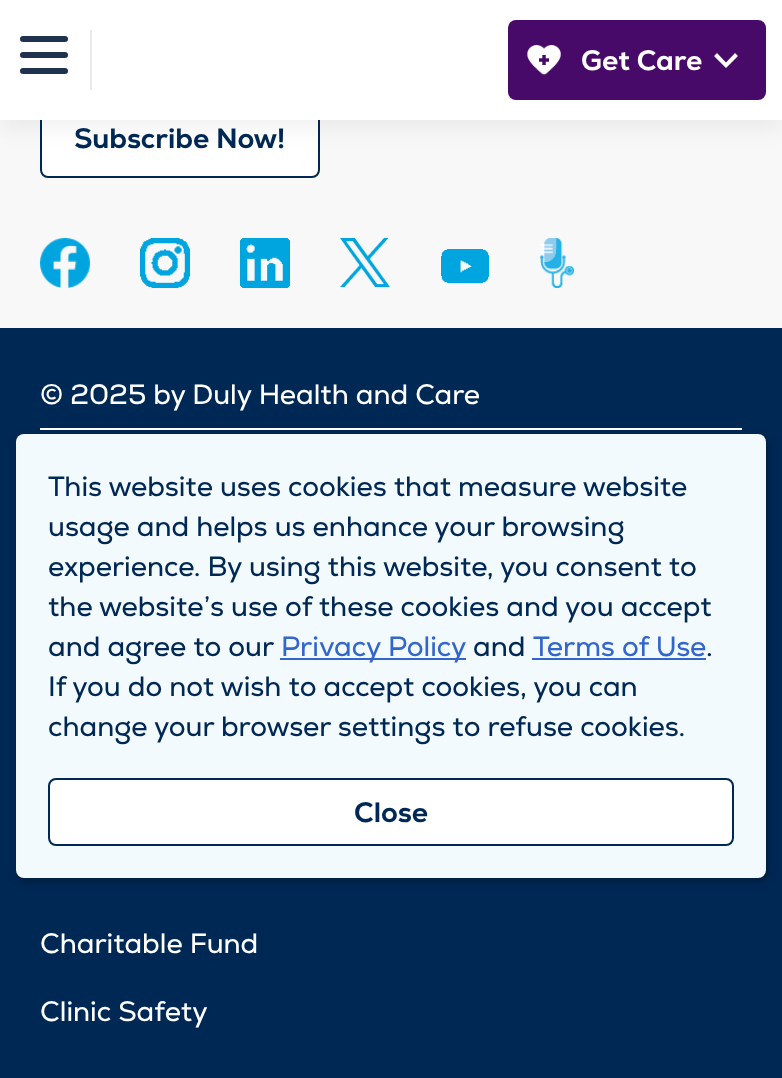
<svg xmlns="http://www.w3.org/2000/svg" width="782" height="1078">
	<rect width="100%" height="100%" fill="#F8F8F8" />
	<rect x="41" y="99" width="278" height="78" rx="7" fill="#FFFFFF" stroke="#002855" stroke-width="2" />
	<rect x="0" y="10" width="782" height="120" fill="#000000" fill-opacity="0.05" filter="blur(10px)" />
	<rect x="0" y="0" width="782" height="120" fill="#FFFFFF" />
	<rect x="20" y="36" width="48" height="6" rx="3" fill="#1F334F" />
	<rect x="20" y="52" width="48" height="6" rx="3" fill="#1F334F" />
	<rect x="20" y="68" width="48" height="6" rx="3" fill="#1F334F" />
	<rect x="90" y="30" width="2" height="60" fill="#E9E9E9" />
	<rect x="508" y="20" width="258" height="80" rx="8" fill="#470A68" />
	<image x="527" y="45" width="34" height="30" href="assets/img1.png" />
	<text x="581" y="70" font-family="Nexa" font-size="28" font-weight="800" fill="#FFFFFF">Get Care</text>
	<path d="M717 53L726 62.5L735 53L738 56L726 68L714 56Z" fill="#FFFFFF" />
	<text x="74" y="148" font-family="Nexa" font-size="28" font-weight="800" fill="#002855">Subscribe Now!</text>
	<image x="40" y="238" width="50" height="50" href="assets/img2.png" />
	<image x="140" y="238" width="50" height="50" href="assets/img3.png" />
	<image x="240" y="238" width="50" height="50" href="assets/img4.png" />
	<image x="340" y="238" width="50" height="50" href="assets/img5.png" />
	<image x="441" y="249" width="49" height="35" href="assets/img6.png" />
	<image x="540" y="238" width="34" height="50" href="assets/img7.png" />
	<rect x="0" y="328" width="782" height="750" fill="#002855" />
	<rect x="40" y="428" width="702" height="2" fill="#FFFFFF" />
	<g font-family="Nexa" font-size="28" fill="#FFFFFF">
		<text x="40" y="404">© 2025 by Duly Health and Care</text>
		<text x="40" y="953">Charitable Fund</text>
		<text x="40" y="1021">Clinic Safety</text>
	</g>
	<rect x="18" y="438" width="750" height="444" rx="8" fill="#000000" fill-opacity="0.25" filter="blur(4px)" />
	<rect x="16" y="434" width="750" height="444" rx="8" fill="#F2FAFD" />
	<g font-family="Nexa" font-size="28" fill="#002855">
		<text x="48" y="496">This website uses cookies that measure website</text>
		<text x="48" y="536">usage and helps us enhance your browsing</text>
		<text x="48" y="576">experience. By using this website, you consent to</text>
		<text x="48" y="616">the website’s use of these cookies and you accept</text>
		<text x="48" y="656">and agree to our</text>
	</g>
	<rect x="280" y="658" width="186" height="2" fill="#3366CC" />
	<text x="281" y="656" font-family="Nexa" font-size="28" fill="#3366CC">Privacy Policy</text>
	<text x="473" y="656" font-family="Nexa" font-size="28" fill="#002855">and</text>
	<text x="533" y="656" font-family="Nexa" font-size="28" fill="#3366CC">Terms of Use</text>
	<rect x="532" y="658" width="174" height="2" fill="#3366CC" />
	<g font-family="Nexa" font-size="28" fill="#002855">
		<text x="706" y="656">.</text>
		<text x="48" y="696">If you do not wish to accept cookies, you can</text>
		<text x="48" y="736">change your browser settings to refuse cookies.</text>
	</g>
	<rect x="49" y="779" width="684" height="66" rx="7" fill="#FFFFFF" stroke="#002855" stroke-width="2" />
	<text x="354" y="822" font-family="Nexa" font-size="28" font-weight="800" fill="#002855">Close</text>
</svg>
